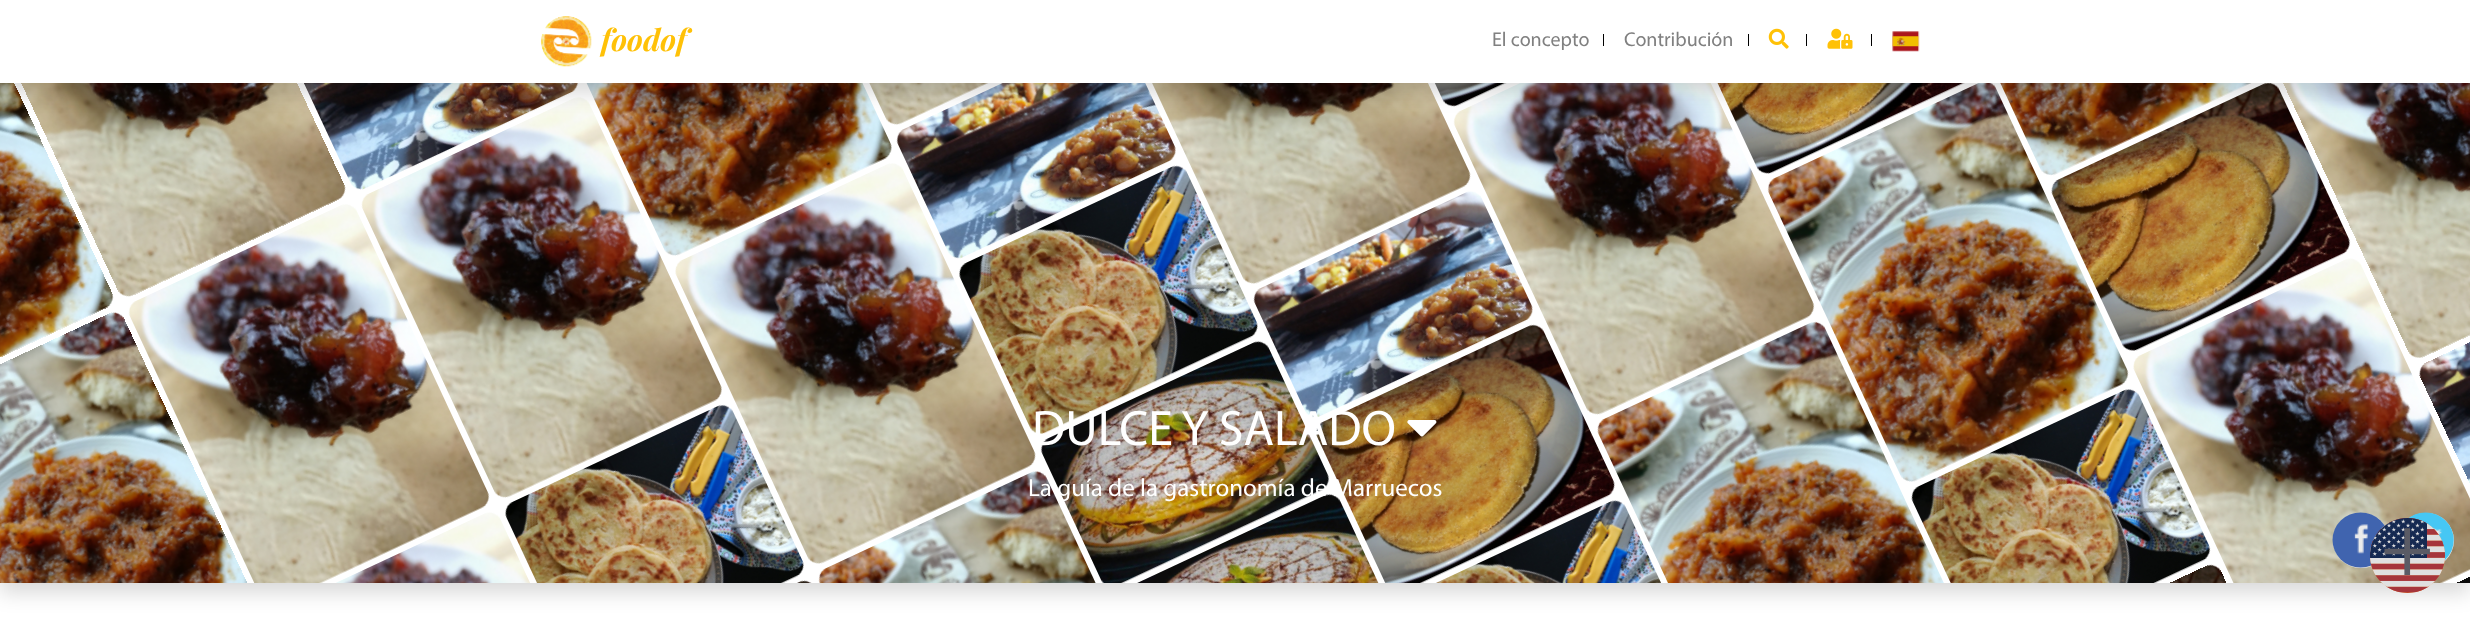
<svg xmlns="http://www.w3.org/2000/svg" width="2470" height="617">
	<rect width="100%" height="100%" fill="#FFFFFF" />
	<rect x="0" y="93" width="2470" height="500" fill="#000000" fill-opacity="0.15" filter="blur(10px)" />
	<rect x="0" y="83" width="2470" height="500" fill="#FFFFFF" />
	<image x="0" y="83" width="114" height="274" href="assets/img5.png" />
	<image x="21" y="83" width="325" height="214" href="assets/img6.png" />
	<image x="304" y="83" width="275" height="107" href="assets/img7.png" />
	<image x="869" y="83" width="120" height="42" href="assets/img9.png" />
	<image x="586" y="83" width="306" height="173" href="assets/img8.png" />
	<image x="1152" y="83" width="319" height="201" href="assets/img11.png" />
	<image x="896" y="83" width="280" height="176" href="assets/img10.png" />
	<image x="1434" y="83" width="73" height="24" href="assets/img12.png" />
	<image x="1453" y="83" width="362" height="332" href="assets/img13.png" />
	<image x="1717" y="83" width="248" height="91" href="assets/img14.png" />
	<image x="2000" y="83" width="252" height="93" href="assets/img16.png" />
	<image x="1767" y="83" width="362" height="399" href="assets/img15.png" />
	<image x="0" y="312" width="247" height="271" href="assets/img24.png" />
	<image x="128" y="204" width="362" height="379" href="assets/img17.png" />
	<image x="361" y="97" width="361" height="401" href="assets/img18.png" />
	<image x="2283" y="83" width="187" height="275" href="assets/img23.png" />
	<image x="2051" y="83" width="300" height="268" href="assets/img22.png" />
	<rect x="0" y="10" width="2470" height="83" fill="#000000" fill-opacity="0.15" filter="blur(10px)" />
	<rect x="0" y="0" width="2470" height="83" fill="#FFFFFF" />
	<image x="541" y="16" width="51" height="51" href="assets/img1.png" />
	<text x="601" y="51" font-family="Playfair Display" font-size="30" font-weight="700" font-style="italic" fill="#FFC107">foodof</text>
	<text x="1492" y="46" font-family="Myriad" font-size="20" fill="#808080">El concepto</text>
	<rect x="1603" y="34" width="1" height="12" fill="#000000" />
	<text x="1624" y="46" font-family="Myriad" font-size="20" fill="#808080">Contribución</text>
	<rect x="1748" y="34" width="1" height="12" fill="#000000" />
	<image x="1768" y="28" width="21" height="21" href="assets/img2.png" />
	<rect x="1806" y="34" width="1" height="12" fill="#000000" />
	<image x="1827" y="28" width="26" height="21" href="assets/img3.png" />
	<rect x="1871" y="34" width="1" height="12" fill="#000000" />
	<image x="1892" y="31" width="28" height="21" href="assets/img4.png" />
	<image x="675" y="163" width="361" height="401" href="assets/img19.png" />
	<image x="959" y="165" width="299" height="269" href="assets/img20.png" />
	<image x="1253" y="191" width="280" height="227" href="assets/img21.png" />
	<image x="1040" y="341" width="290" height="242" href="assets/img25.png" />
	<image x="1316" y="324" width="299" height="259" href="assets/img26.png" />
	<image x="1597" y="321" width="347" height="262" href="assets/img27.png" />
	<image x="2133" y="258" width="337" height="325" href="assets/img28.png" />
	<image x="336" y="512" width="194" height="71" href="assets/img29.png" />
	<image x="505" y="404" width="299" height="179" href="assets/img30.png" />
	<image x="818" y="471" width="278" height="112" href="assets/img31.png" />
	<image x="1137" y="494" width="242" height="89" href="assets/img32.png" />
	<image x="1436" y="500" width="225" height="83" href="assets/img33.png" />
	<image x="1911" y="389" width="300" height="194" href="assets/img34.png" />
	<image x="2419" y="342" width="51" height="141" href="assets/img35.png" />
	<image x="797" y="580" width="15" height="3" href="assets/img36.png" />
	<image x="2170" y="564" width="56" height="19" href="assets/img37.png" />
	<image x="2457" y="577" width="13" height="6" href="assets/img38.png" />
	<text x="1032" y="445" font-family="Myriad" font-size="50" fill="#FFFFFF">DULCE Y SALADO</text>
	<image x="1407" y="420" width="30" height="17" href="assets/img39.png" />
	<text x="1028" y="496" font-family="Myriad" font-size="25" fill="#FFFFFF">La guía de la gastronomía de Marruecos</text>
	<rect x="2333" y="513" width="56" height="55" rx="27.5" fill="#EBEBEB" />
	<image x="2332" y="512" width="53" height="56" href="assets/img40.png" />
	<rect x="2398" y="513" width="56" height="55" rx="27.5" fill="#EBEBEB" />
	<image x="2409" y="512" width="45" height="52" href="assets/img41.png" />
	<circle cx="2407.5" cy="555.5" r="37.5" fill="#EF5B01" fill-opacity="0.9" />
	<image x="2370" y="518" width="75" height="75" href="assets/img42.png" />
	<circle cx="2407.5" cy="555.5" r="37.5" fill="#000000" fill-opacity="0.12" />
	<text x="2381" y="575" font-family="Myriad" font-size="88" fill="#5A5B65">+</text>
</svg>
